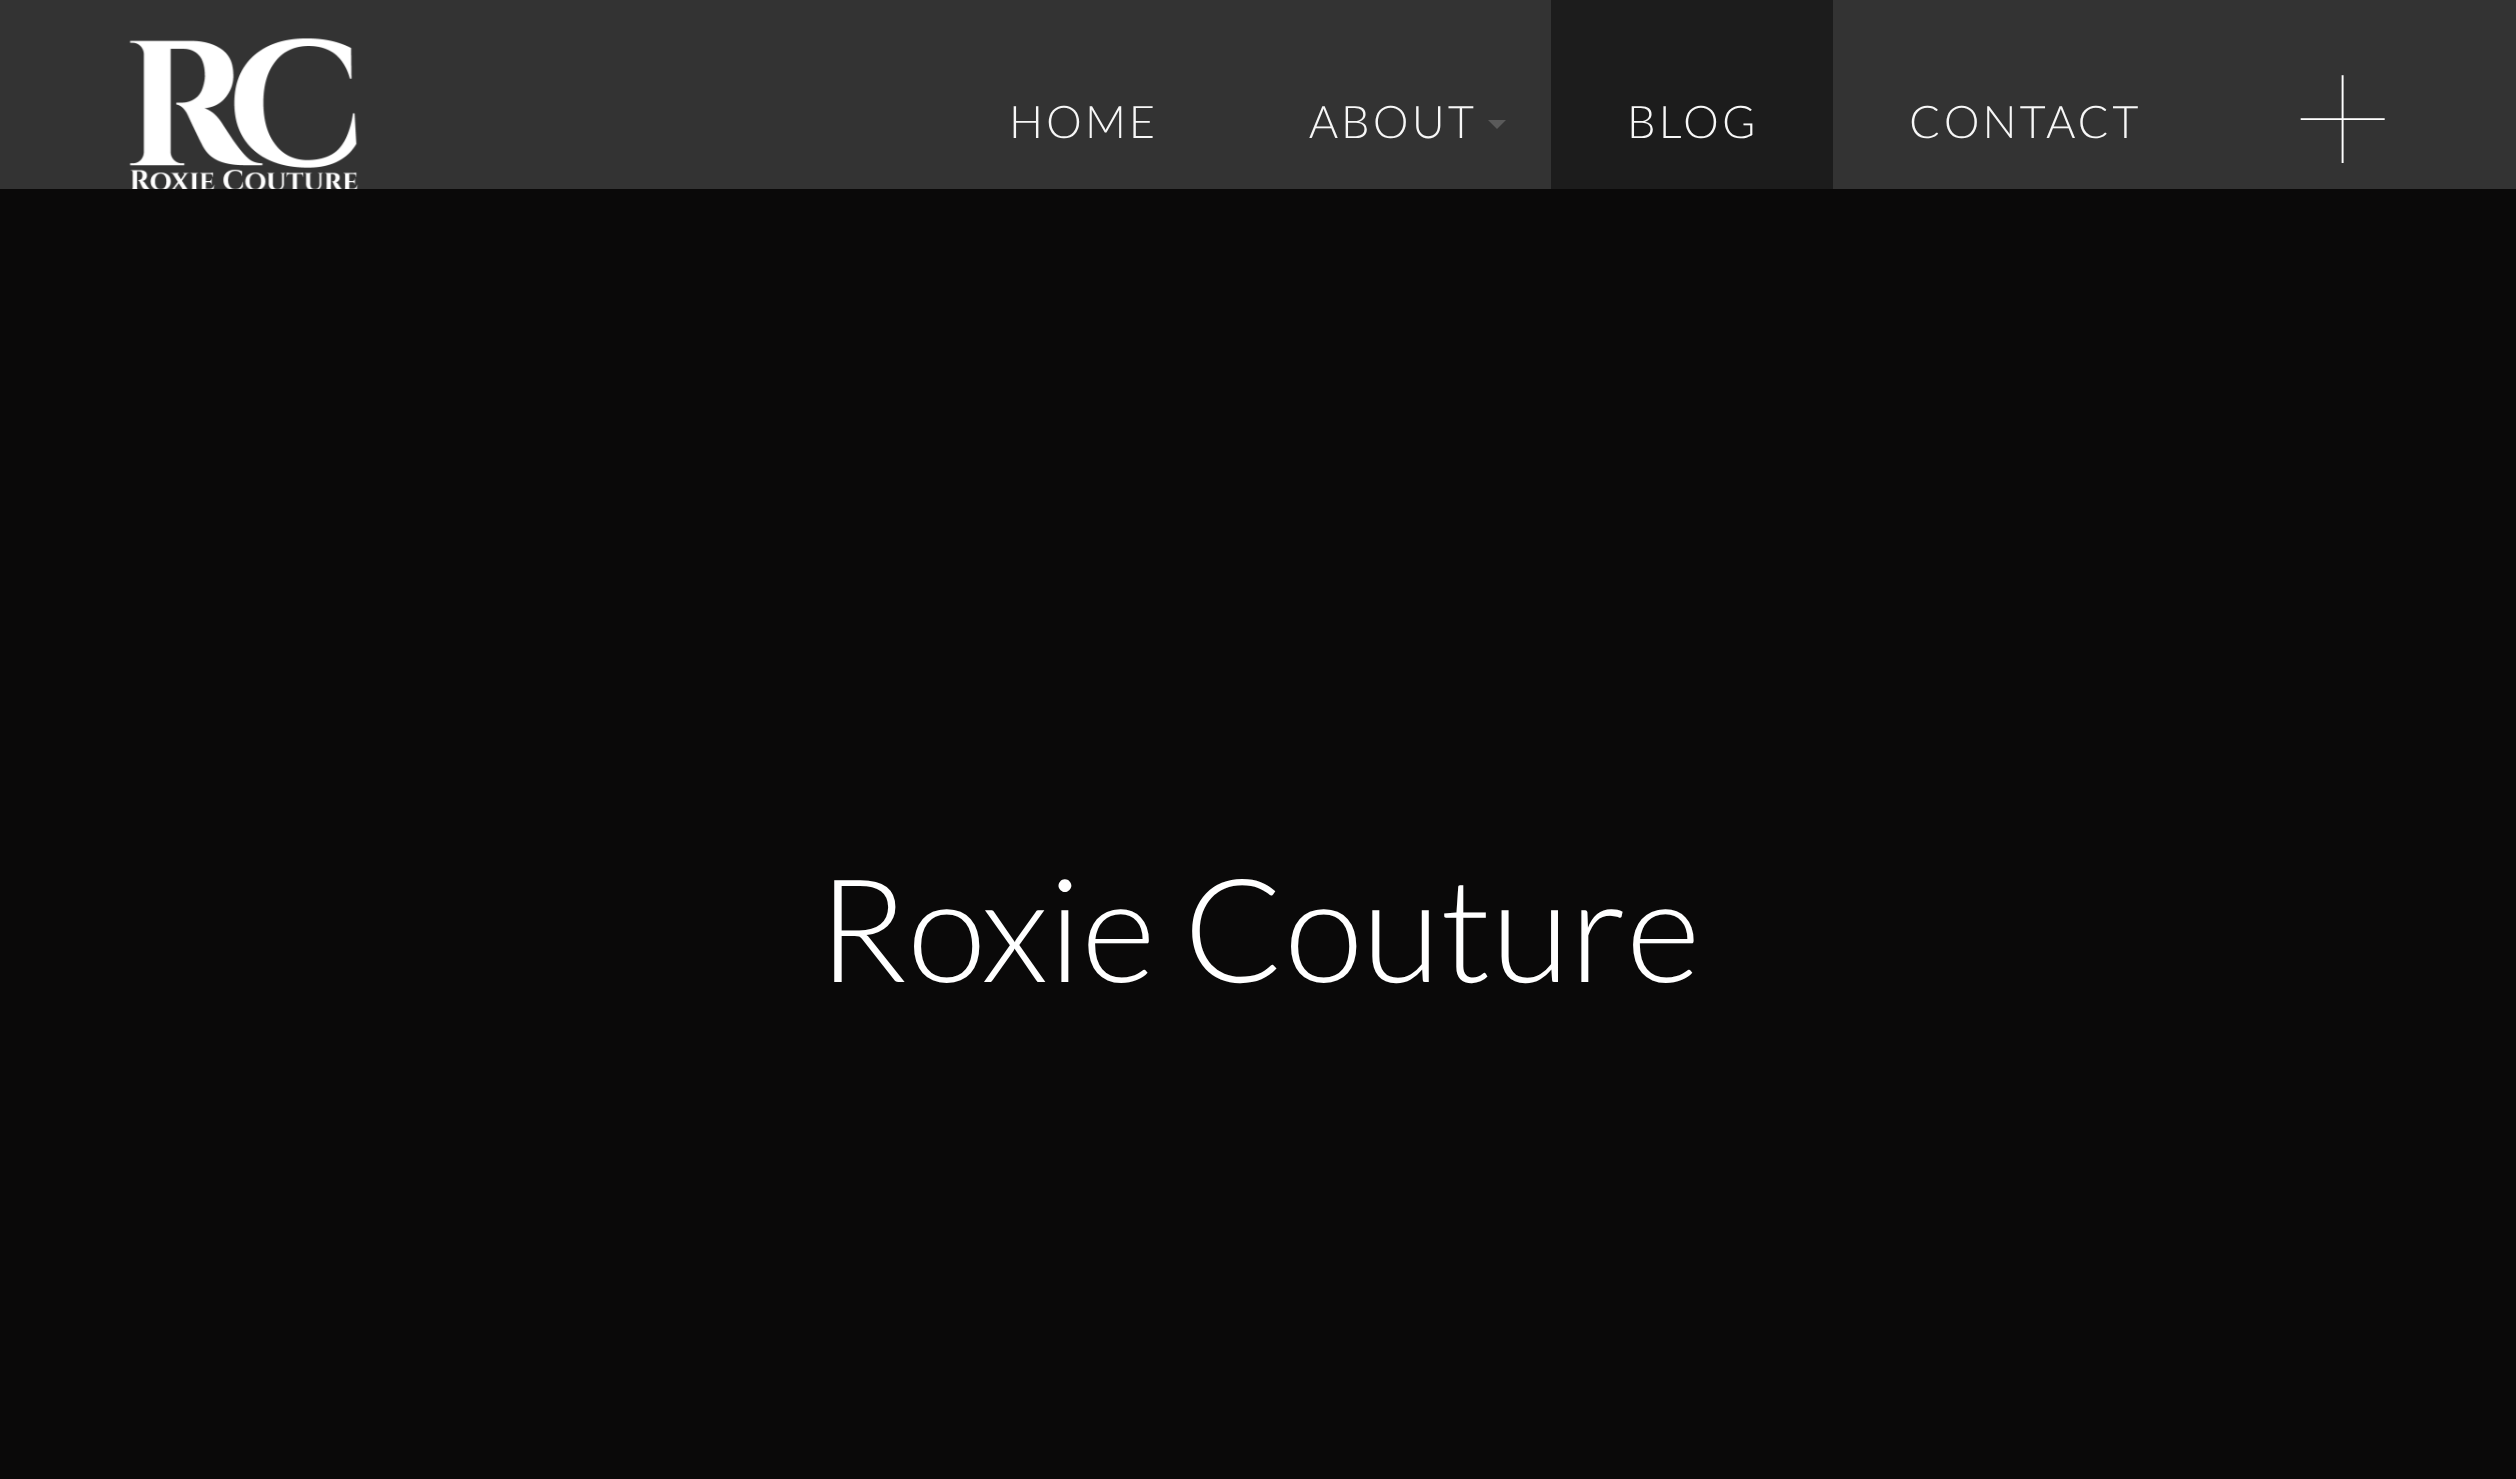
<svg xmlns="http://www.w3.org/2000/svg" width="2516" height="1479">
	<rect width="100%" height="100%" fill="#333333" />
	<image x="129" y="38" width="230" height="151" href="assets/img1.png" />
	<rect x="1551" y="0" width="282" height="189" fill="#1C1C1C" />
	<g font-family="Lato" font-size="45" font-weight="300" letter-spacing="3" fill="#F7F7F7">
		<text x="1009" y="138">HOME</text>
		<text x="1309" y="138">ABOUT</text>
	</g>
	<path d="M1488 120H1506L1497 129Z" fill="#5A5A5A" />
	<g font-family="Lato" font-size="45" font-weight="300" letter-spacing="3" fill="#F7F7F7">
		<text x="1627" y="138">BLOG</text>
		<text x="1909" y="138">CONTACT</text>
	</g>
	<text x="2290" y="180" font-family="Lato" font-size="182" font-weight="100" fill="#FFFFFF">+</text>
	<rect x="0" y="189" width="2516" height="1290" fill="#0A0909" />
	<text x="817" y="982" font-family="Lato" font-size="144" font-weight="300" fill="#FFFFFF">Roxie Couture</text>
</svg>
